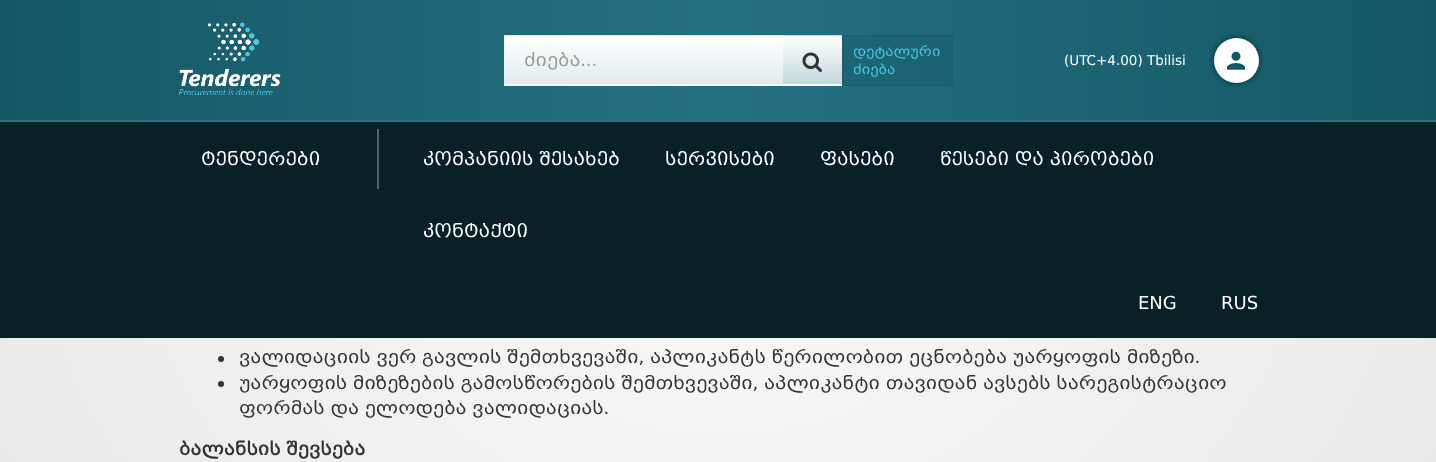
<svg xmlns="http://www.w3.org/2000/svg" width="1436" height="462">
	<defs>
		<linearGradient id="g1" gradientUnits="userSpaceOnUse" x1="0" y1="60" x2="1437" y2="60"><stop offset="0" stop-color="#155765" /><stop offset="0.5" stop-color="#247182" /><stop offset="1" stop-color="#155765" /></linearGradient>
		<linearGradient id="g2" gradientUnits="userSpaceOnUse" x1="0" y1="60" x2="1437" y2="60"><stop offset="0" stop-color="#155765" /><stop offset="0.5" stop-color="#1F6979" /><stop offset="1" stop-color="#155765" /></linearGradient>
		<linearGradient id="g3" gradientUnits="userSpaceOnUse" x1="644" y1="-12" x2="644" y2="84"><stop offset="0" stop-color="#FFFFFF" /><stop offset="1" stop-color="#C1D7DC" /></linearGradient>
		<linearGradient id="g4" gradientUnits="userSpaceOnUse" x1="644" y1="36" x2="644" y2="132"><stop offset="0" stop-color="#FFFFFF" /><stop offset="1" stop-color="#C1D7DC" /></linearGradient>
		<linearGradient id="g5" gradientUnits="userSpaceOnUse" x1="644" y1="84" x2="644" y2="180"><stop offset="0" stop-color="#FFFFFF" /><stop offset="1" stop-color="#C1D7DC" /></linearGradient>
		<linearGradient id="g6" gradientUnits="userSpaceOnUse" x1="812" y1="-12" x2="812" y2="36"><stop offset="0" stop-color="#FFFFFF" /><stop offset="1" stop-color="#C1D7DC" /></linearGradient>
		<linearGradient id="g7" gradientUnits="userSpaceOnUse" x1="812" y1="36" x2="812" y2="84"><stop offset="0" stop-color="#FFFFFF" /><stop offset="1" stop-color="#C1D7DC" /></linearGradient>
		<linearGradient id="g8" gradientUnits="userSpaceOnUse" x1="812" y1="84" x2="812" y2="132"><stop offset="0" stop-color="#FFFFFF" /><stop offset="1" stop-color="#C1D7DC" /></linearGradient>
		<radialGradient id="g9" gradientUnits="userSpaceOnUse" cx="0" cy="0" r="1" gradientTransform="matrix(1016 0 0 767 719 217)"><stop offset="0" stop-color="#FAFAFA" /><stop offset="1" stop-color="#E4E4E4" /></radialGradient>
	</defs>
	<rect width="100%" height="100%" fill="#FFFFFF" />
	<rect x="0" y="0" width="1436" height="120" fill="url(#g1)" />
	<rect x="844" y="37" width="107" height="47" fill="url(#g2)" />
	<rect x="0" y="120" width="1436" height="2" fill="#247182" />
	<image x="178" y="22" width="103" height="73" href="assets/img1.png" />
	<rect x="504" y="35" width="279" height="1" fill="url(#g3)" />
	<rect x="504" y="36" width="279" height="48" fill="url(#g4)" />
	<rect x="504" y="84" width="279" height="2" fill="url(#g5)" />
	<text x="524" y="66" font-family="'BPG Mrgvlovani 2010'" font-size="18" fill="#999999">ძიება...</text>
	<rect x="783" y="35" width="59" height="1" fill="url(#g6)" />
	<rect x="783" y="36" width="59" height="48" fill="url(#g7)" />
	<rect x="783" y="84" width="59" height="2" fill="url(#g8)" />
	<image x="802" y="52" width="20" height="20" href="assets/img2.png" />
	<rect x="843" y="36" width="109" height="49" fill="none" stroke="#1C5F6F" stroke-width="2" />
	<g font-family="'BPG Mrgvlovani 2010'" font-size="13.5" fill="#49C7E7">
		<text x="853" y="56">დეტალური</text>
		<text x="853" y="74">ძიება</text>
	</g>
	<text x="1064" y="65" font-family="'BPG Mrgvlovani 2010'" font-size="13.5" fill="#FFFFFF">(UTC+4.00) Tbilisi</text>
	<rect x="1211" y="35" width="51" height="51" rx="25.5" fill="#000000" fill-opacity="0.2" filter="blur(1.5px)" />
	<circle cx="1236.5" cy="60.5" r="22.5" fill="#FFFFFF" />
	<image x="1227" y="51" width="18" height="19" href="assets/img3.png" />
	<rect x="0" y="122" width="1436" height="216" fill="#082026" />
	<text x="201" y="165" font-family="'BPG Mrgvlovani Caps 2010'" font-size="18" fill="#FFFFFF">ტენდერები</text>
	<rect x="377" y="129" width="2" height="60" fill="#526367" />
	<g font-family="'BPG Mrgvlovani Caps 2010'" font-size="18" fill="#FFFFFF">
		<text x="423" y="165">კომპანიის შესახებ</text>
		<text x="665" y="165">სერვისები</text>
		<text x="820" y="165">ფასები</text>
		<text x="940" y="165">წესები და პირობები</text>
		<text x="423" y="237">კონტაქტი</text>
		<text x="1138" y="309">ENG</text>
		<text x="1221" y="309">RUS</text>
	</g>
	<rect x="0" y="338" width="1436" height="124" fill="url(#g9)" />
	<circle cx="221" cy="359" r="3" fill="#333333" />
	<text x="239" y="363" font-family="'BPG Mrgvlovani 2010'" font-size="18" fill="#333333">ვალიდაციის ვერ გავლის შემთხვევაში, აპლიკანტს წერილობით ეცნობება უარყოფის მიზეზი.</text>
	<circle cx="221" cy="384" r="3" fill="#333333" />
	<g font-family="'BPG Mrgvlovani 2010'" font-size="18" fill="#333333">
		<text x="239" y="389">უარყოფის მიზეზების გამოსწორების შემთხვევაში, აპლიკანტი თავიდან ავსებს სარეგისტრაციო</text>
		<text x="239" y="414">ფორმას და ელოდება ვალიდაციას.</text>
	</g>
	<text x="179" y="455" font-family="'BPG Mrgvlovani 2010'" font-size="18" font-weight="700" fill="#333333">ბალანსის შევსება</text>
</svg>
